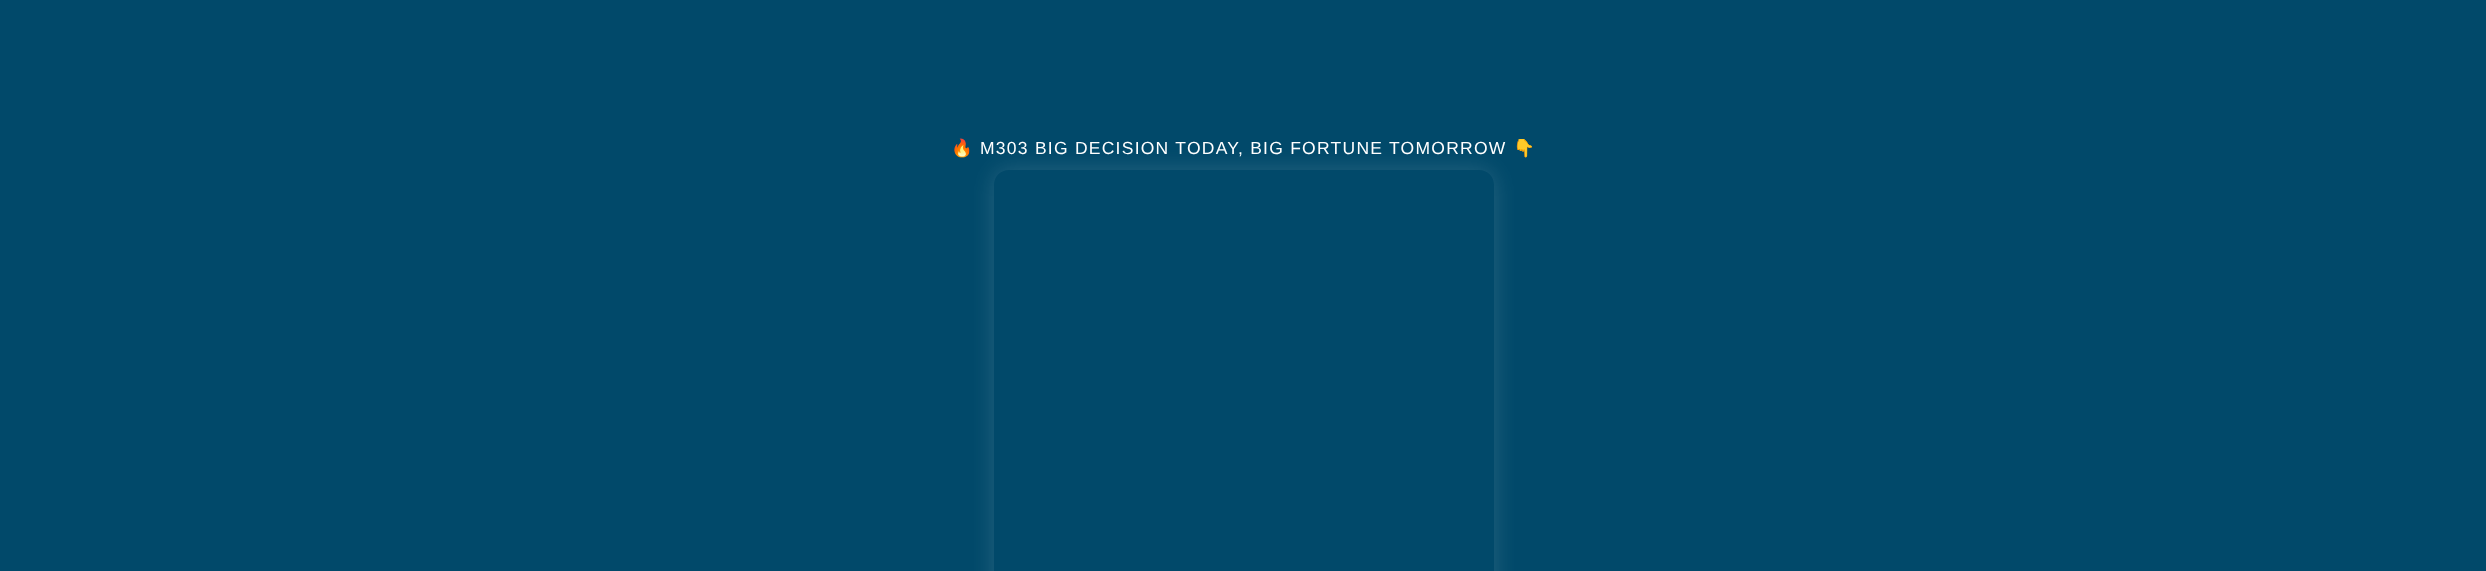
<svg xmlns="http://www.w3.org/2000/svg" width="2486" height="571">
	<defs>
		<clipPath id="clip1"><path d="M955 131H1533V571H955ZM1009 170H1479C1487.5 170 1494 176.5 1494 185V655C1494 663.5 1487.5 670 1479 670H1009C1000.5 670 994 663.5 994 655V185C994 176.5 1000.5 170 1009 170Z" clip-rule="evenodd" /></clipPath>
	</defs>
	<rect width="100%" height="100%" fill="#01496A" />
	<g clip-path="url(#clip1)">
		<rect x="994" y="170" width="500" height="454" rx="15" fill="#FFFFFF" fill-opacity="0.15" filter="blur(12.5px)" />
	</g>
	<text x="951" y="154" font-family="Noto Color Emoji" font-size="17.5" letter-spacing="1.25" fill="#FFFFFF">🔥</text>
	<text x="980" y="154" font-family="Liberation Sans" font-size="17.5" letter-spacing="1.25" fill="#FFFFFF">M303 BIG DECISION TODAY, BIG FORTUNE TOMORROW</text>
	<text x="1513" y="154" font-family="Noto Color Emoji" font-size="17.5" letter-spacing="1.25" fill="#FFFFFF">👇</text>
</svg>
